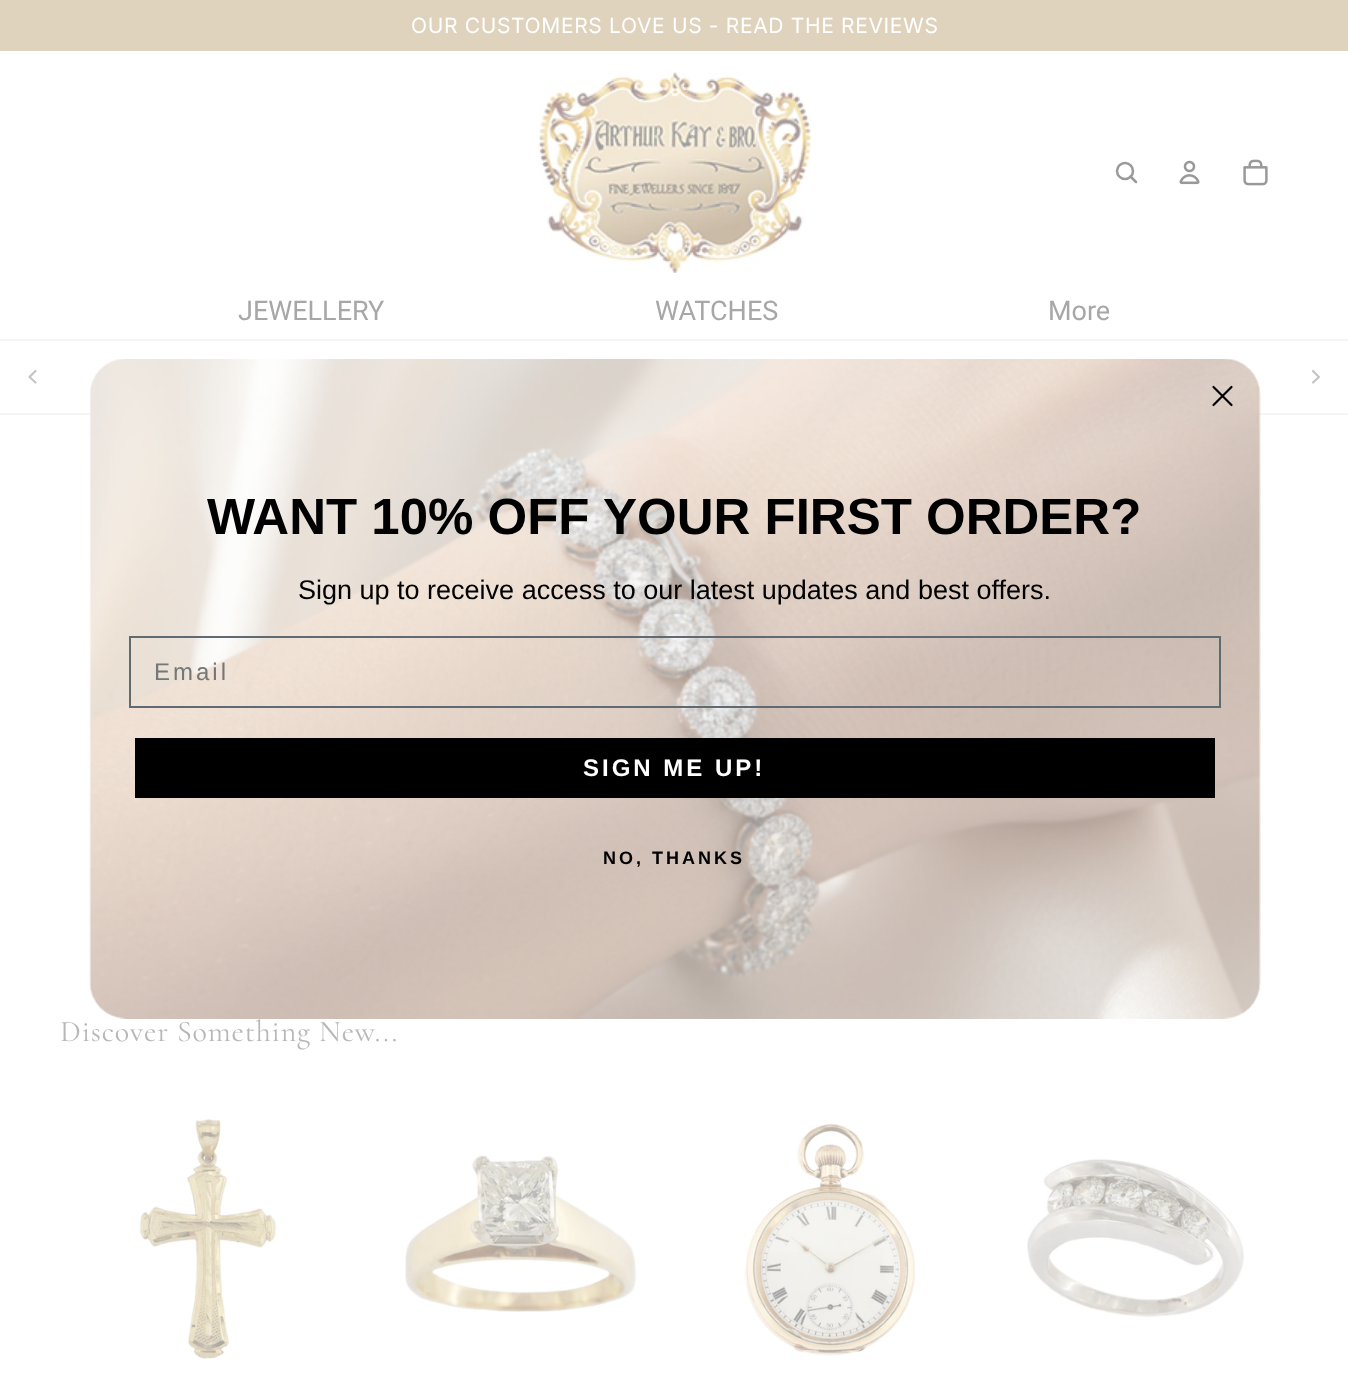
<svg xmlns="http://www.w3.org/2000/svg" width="1348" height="1376">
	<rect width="100%" height="100%" fill="#FFFFFF" />
	<rect x="0" y="0" width="1348" height="51" fill="#DFD3BE" />
	<text x="411" y="33" font-family="Inter" font-size="21" letter-spacing="0.65" fill="#FFFFFF">OUR CUSTOMERS LOVE US - READ THE REVIEWS</text>
	<image x="535" y="72" width="278" height="201" href="assets/img1.png" />
	<circle cx="1125" cy="171" r="8" fill="none" stroke="#999999" stroke-width="2.5" />
	<path d="M1130.5 176.5L1136 182" fill="none" stroke="#999999" stroke-width="2.5" stroke-linecap="round" stroke-linejoin="round" />
	<image x="1179" y="160" width="21" height="25" href="assets/img2.png" />
	<image x="1243" y="159" width="25" height="27" href="assets/img3.png" />
	<rect x="0" y="339" width="1348" height="2" fill="#F5F5F5" />
	<g font-family="Roboto" font-size="27" fill="#A7A7A7">
		<text x="238" y="320">JEWELLERY</text>
		<text x="655" y="320">WATCHES</text>
		<text x="1048" y="320">More</text>
	</g>
	<rect x="0" y="413" width="1348" height="2" fill="#F5F5F5" />
	<path d="M35.5 371L29.5 377L35.5 382.5" fill="none" stroke="#C4C4C4" stroke-width="2.2" stroke-linecap="round" stroke-linejoin="round" />
	<path d="M1313 371L1319 377L1313 382.5" fill="none" stroke="#C4C4C4" stroke-width="2.2" stroke-linecap="round" stroke-linejoin="round" />
	<image x="89" y="359" width="1172" height="660" href="assets/img4.png" />
	<path d="M1213.5 387L1231.5 405M1213.5 405L1231.5 387Z" fill="none" stroke="#000000" stroke-width="2.2" stroke-linecap="round" stroke-linejoin="round" />
	<g font-family="Liberation Sans" font-size="51" font-weight="700" fill="#000000">
		<text x="207" y="534">WANT 10% OFF</text>
		<text x="603" y="534">YOUR FIRST ORDER?</text>
	</g>
	<text x="298" y="599" font-family="Liberation Sans" font-size="27" fill="#000000">Sign up to receive access to our latest updates and best offers.</text>
	<rect x="130" y="637" width="1090" height="70" fill="none" stroke="#606A72" stroke-width="2" />
	<text x="154" y="680" font-family="Liberation Sans" font-size="24" letter-spacing="3" fill="#767676">Email</text>
	<rect x="135" y="738" width="1080" height="60" fill="#000000" />
	<text x="583" y="776" font-family="Liberation Sans" font-size="24" font-weight="700" letter-spacing="3" fill="#FFFFFF">SIGN ME UP!</text>
	<text x="603" y="864" font-family="Liberation Sans" font-size="18" font-weight="700" letter-spacing="3" fill="#000000">NO, THANKS</text>
	<text x="60" y="1041" font-family="Cormorant" font-size="30" letter-spacing="0.9" fill="#B7B7B7">Discover Something New...</text>
	<image x="138" y="1118" width="139" height="241" href="assets/img5.png" />
	<image x="405" y="1155" width="232" height="158" href="assets/img6.png" />
	<image x="744" y="1123" width="173" height="233" href="assets/img7.png" />
	<image x="1027" y="1159" width="218" height="159" href="assets/img8.png" />
</svg>
